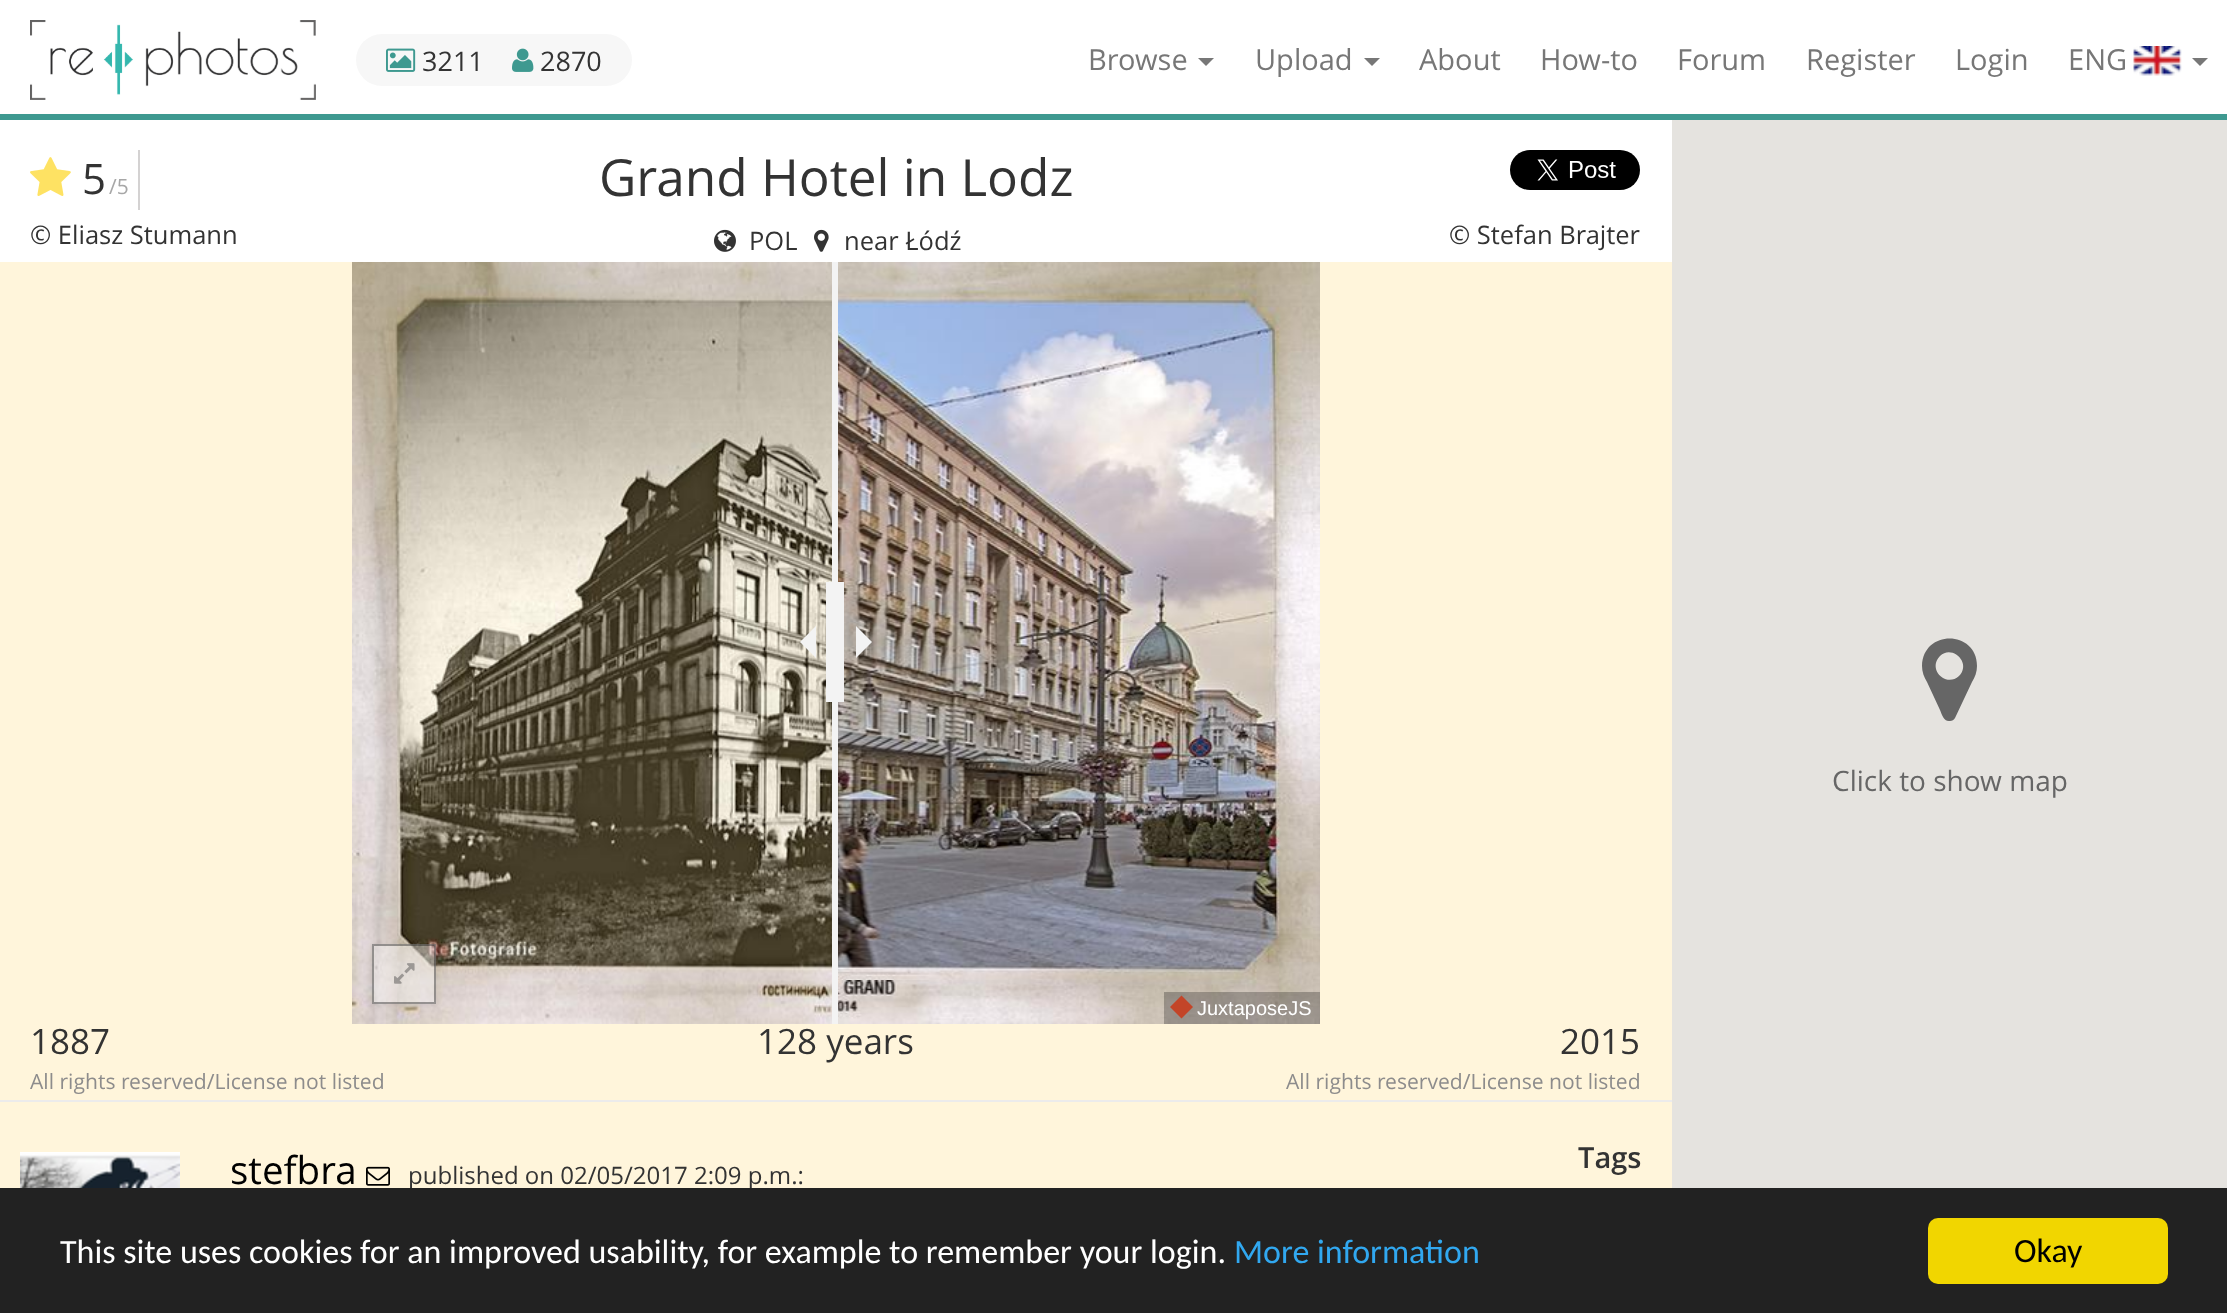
<svg xmlns="http://www.w3.org/2000/svg" width="2227" height="1313">
	<defs>
		<clipPath id="clip1"><path d="M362 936H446V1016H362ZM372 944H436V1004H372Z" clip-rule="evenodd" /></clipPath>
	</defs>
	<rect width="100%" height="100%" fill="#FFFFFF" />
	<rect x="0" y="114" width="2227" height="6" fill="#3E9990" />
	<image x="30" y="20" width="286" height="80" href="assets/img1.png" />
	<rect x="356" y="34" width="276" height="52" rx="26" fill="#F7F7F7" />
	<image x="386" y="48" width="30" height="24" href="assets/img2.png" />
	<text x="422" y="71" font-family="Open Sans" font-size="27" fill="#333333">3211</text>
	<image x="512" y="48" width="22" height="24" href="assets/img3.png" />
	<text x="540" y="71" font-family="Open Sans" font-size="27" fill="#333333">2870</text>
	<text x="1088" y="70" font-family="Open Sans" font-size="29" fill="#777777">Browse</text>
	<path d="M1198 58H1214L1206 66Z" fill="#777777" />
	<text x="1255" y="70" font-family="Open Sans" font-size="29" fill="#777777">Upload</text>
	<path d="M1364 58H1380L1372 66Z" fill="#777777" />
	<g font-family="Open Sans" font-size="29" fill="#777777">
		<text x="1419" y="70">About</text>
		<text x="1540" y="70">How-to</text>
		<text x="1677" y="70">Forum</text>
		<text x="1806" y="70">Register</text>
		<text x="1955" y="70">Login</text>
		<text x="2068" y="70">ENG</text>
	</g>
	<image x="2133" y="46" width="49" height="30" href="assets/img4.png" />
	<path d="M2192 58H2208L2200 66Z" fill="#777777" />
	<rect x="138" y="150" width="2" height="60" fill="#D4D2D2" />
	<image x="30" y="157" width="41" height="39" href="assets/img5.png" />
	<text x="82" y="194" font-family="Open Sans" font-size="42" fill="#333333">5</text>
	<text x="109" y="194" font-family="Open Sans" font-size="21" fill="#A7A7A7">/5</text>
	<text x="599" y="196" font-family="Open Sans" font-size="51.25" fill="#333333">Grand Hotel in Lodz</text>
	<image x="1510" y="150" width="130" height="40" href="assets/img6.png" />
	<text x="30" y="244" font-family="Open Sans" font-size="25.5" fill="#333333">© Eliasz Stumann</text>
	<image x="714" y="229" width="22" height="23" href="assets/img7.png" />
	<text x="749" y="250" font-family="Open Sans" font-size="25.5" fill="#333333">POL</text>
	<image x="814" y="229" width="15" height="23" href="assets/img8.png" />
	<g font-family="Open Sans" font-size="25.5" fill="#333333">
		<text x="844" y="250">near Łódź</text>
		<text x="1449" y="244">© Stefan Brajter</text>
	</g>
	<rect x="0" y="262" width="1672" height="838" fill="#FFF5DB" />
	<image x="352" y="1023" width="480" height="1" href="assets/img9.png" />
	<image x="352" y="262" width="480" height="762" href="assets/img11.png" />
	<g clip-path="url(#clip1)">
		<rect x="372" y="946" width="64" height="60" fill="#000000" fill-opacity="0.08" filter="blur(3px)" />
	</g>
	<rect x="372" y="944" width="64" height="60" fill="#FFFFFF" fill-opacity="0.4" />
	<rect x="373" y="945" width="62" height="58" fill="none" stroke="#161616" stroke-opacity="0.4" stroke-width="2" />
	<image x="394" y="963" width="21" height="21" href="assets/img10.png" />
	<path d="M816 626V658L800 642Z" fill="#F3F3F3" />
	<rect x="832" y="262" width="6" height="762" fill="#F3F3F3" />
	<image x="838" y="262" width="482" height="762" href="assets/img12.png" />
	<rect x="826" y="582" width="18" height="120" fill="#F3F3F3" />
	<path d="M856 658V626L872 642Z" fill="#F3F3F3" />
	<rect x="1164" y="992" width="156" height="32" fill="#000000" fill-opacity="0.25" />
	<path d="M1181.5 995.5L1193 1007L1181.5 1018.5L1170 1007Z" fill="#C34528" />
	<text x="1197" y="1015" font-family="Liberation Sans" font-size="20" fill="#FFFFFF">JuxtaposeJS</text>
	<text x="30" y="1054" font-family="Open Sans" font-size="35" fill="#333333">1887</text>
	<text x="30" y="1089" font-family="Open Sans" font-size="21.1" fill="#8D8C8C">All rights reserved/License not listed</text>
	<g font-family="Open Sans" font-size="35" fill="#333333">
		<text x="757" y="1054">128 years</text>
		<text x="1560" y="1054">2015</text>
	</g>
	<text x="1286" y="1089" font-family="Open Sans" font-size="21.1" fill="#8D8C8C">All rights reserved/License not listed</text>
	<rect x="0" y="1102" width="1672" height="86" fill="#FFF5DB" />
	<rect x="0" y="1100" width="1672" height="2" fill="#ECEBEB" />
	<image x="20" y="1152" width="160" height="36" href="assets/img13.png" />
	<text x="230" y="1184" font-family="Open Sans" font-size="38.5" fill="#000000">stefbra</text>
	<image x="366" y="1166" width="24" height="20" href="assets/img14.png" />
	<text x="408" y="1184" font-family="Open Sans" font-size="24" fill="#333333">published on 02/05/2017 2:09 p.m.:</text>
	<text x="1578" y="1168" font-family="Open Sans" font-size="29" font-weight="600" fill="#333333">Tags</text>
	<rect x="1672" y="120" width="555" height="1068" fill="#E5E3DF" />
	<path d="M1959 676C1972 663 1952 644 1940 656C1927 669 1946 688 1959 676ZM1977 666C1977 672 1975 677 1972 682L1955 718C1954 720 1952 721 1950 721C1944 722 1942 715 1940 710L1927 682C1924 677 1922 672 1922 666C1923 629 1977 630 1977 666Z" fill="#666666" />
	<text x="1832" y="791" font-family="Open Sans" font-size="28" fill="#666666">Click to show map</text>
	<rect x="0" y="1188" width="2227" height="125" fill="#222222" />
	<text x="60" y="1263" font-family="Carlito" font-size="34" fill="#FFFFFF">This site uses cookies for an improved usability, for example to remember your login.</text>
	<text x="1234" y="1263" font-family="Carlito" font-size="34" fill="#31A8F0">More information</text>
	<rect x="1928" y="1218" width="240" height="66" rx="10" fill="#F1D600" />
	<text x="2014" y="1262" font-family="Carlito" font-size="34" fill="#000000">Okay</text>
</svg>
